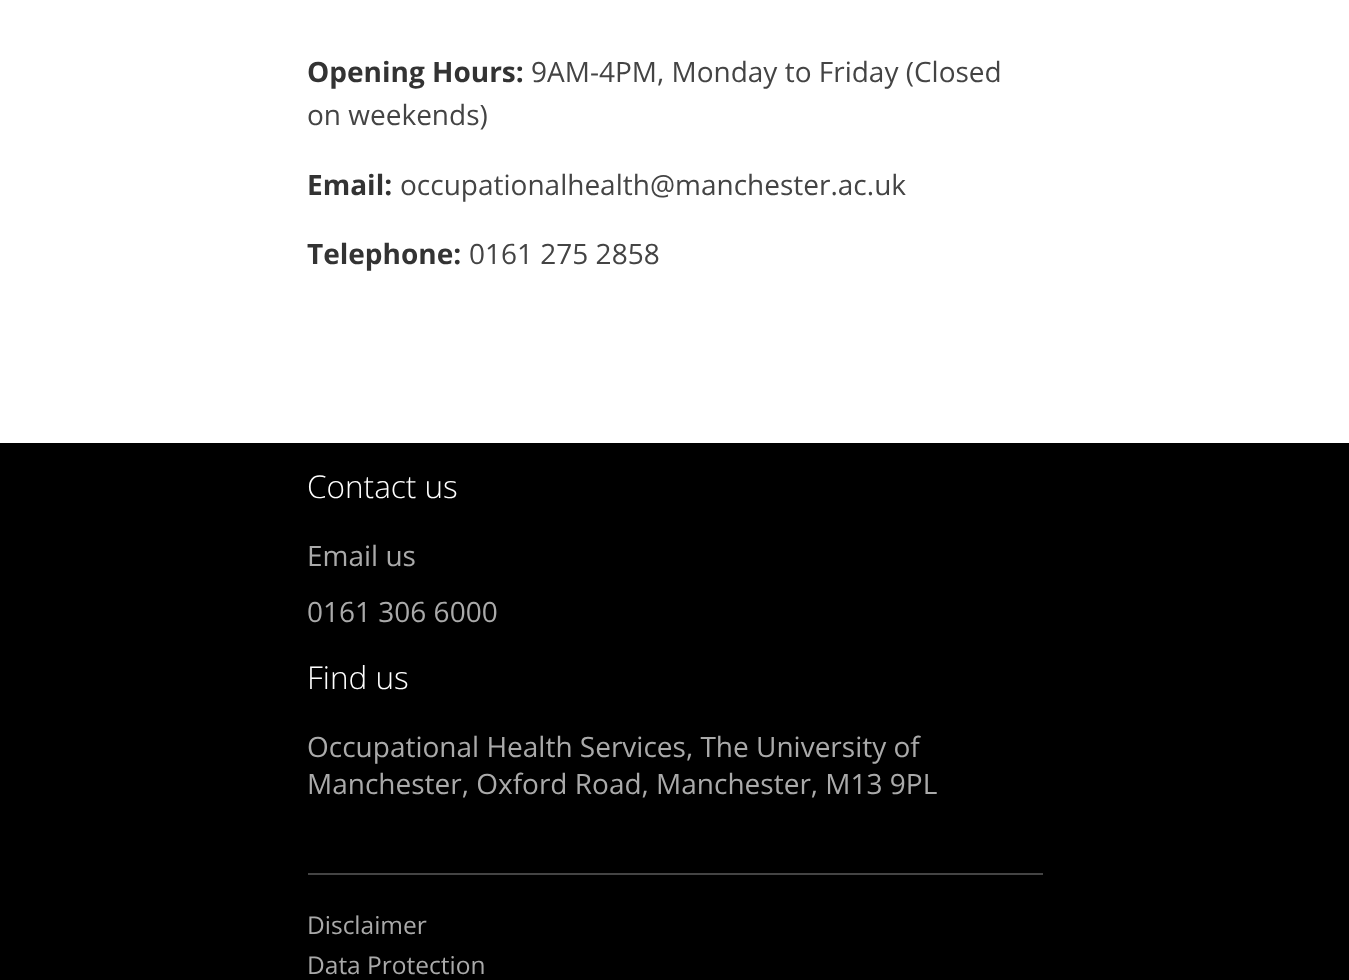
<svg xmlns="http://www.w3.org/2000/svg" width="1349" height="980">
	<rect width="100%" height="100%" fill="#FFFFFF" />
	<text x="307" y="82" font-family="Open Sans" font-size="28" font-weight="700" fill="#333333">Opening Hours:</text>
	<g font-family="Open Sans" font-size="28" fill="#444444">
		<text x="531" y="82">9AM-4PM, Monday to Friday (Closed</text>
		<text x="307" y="125">on weekends)</text>
	</g>
	<text x="307" y="195" font-family="Open Sans" font-size="28" font-weight="700" fill="#333333">Email:</text>
	<text x="400" y="195" font-family="Open Sans" font-size="28" fill="#444444">occupationalhealth@manchester.ac.uk</text>
	<text x="307" y="264" font-family="Open Sans" font-size="28" font-weight="700" fill="#333333">Telephone:</text>
	<text x="469" y="264" font-family="Open Sans" font-size="28" fill="#444444">0161 275 2858</text>
	<rect x="0" y="443" width="1349" height="537" fill="#000000" />
	<text x="307" y="498" font-family="Open Sans" font-size="31.5" font-weight="300" fill="#FFFFFF">Contact us</text>
	<g font-family="Open Sans" font-size="28" fill="#AAAAAA">
		<text x="307" y="566">Email us</text>
		<text x="307" y="622">0161 306 6000</text>
	</g>
	<text x="307" y="689" font-family="Open Sans" font-size="31.5" font-weight="300" fill="#FFFFFF">Find us</text>
	<g font-family="Open Sans" font-size="28" fill="#AAAAAA">
		<text x="307" y="757">Occupational Health Services, The University of</text>
		<text x="307" y="794">Manchester, Oxford Road, Manchester, M13 9PL</text>
	</g>
	<rect x="308" y="873" width="735" height="2" fill="#444444" />
	<g font-family="Open Sans" font-size="24.5" fill="#AAAAAA">
		<text x="307" y="934">Disclaimer</text>
		<text x="307" y="974">Data Protection</text>
	</g>
</svg>
